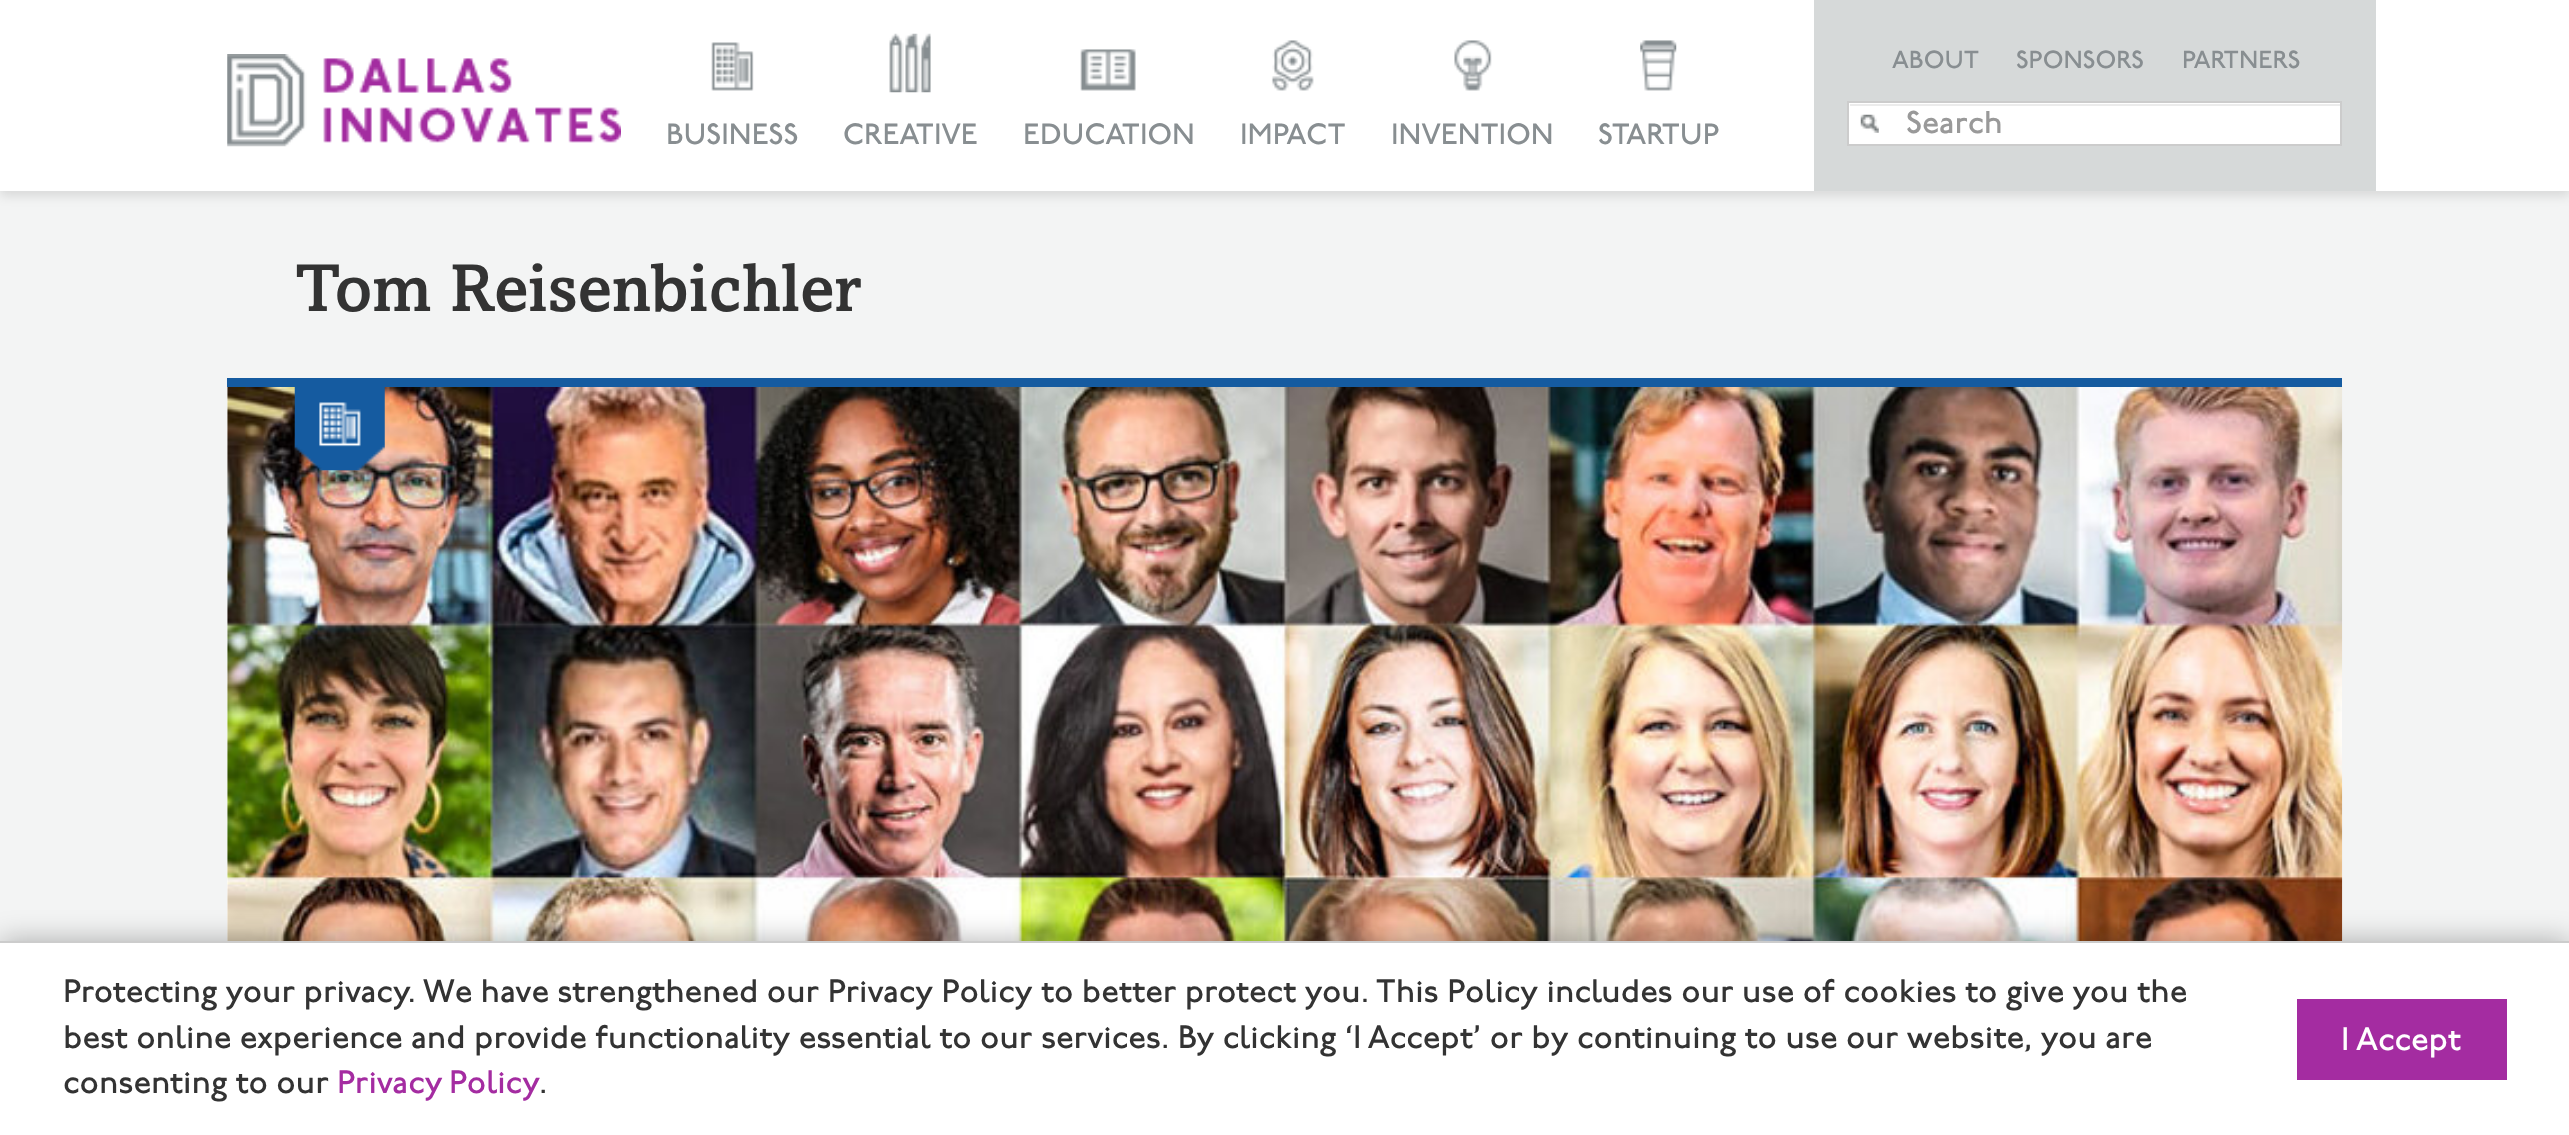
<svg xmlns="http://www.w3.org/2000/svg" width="2569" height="1135">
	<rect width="100%" height="100%" fill="#F3F4F4" />
	<rect x="0" y="5" width="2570" height="191" fill="#000000" fill-opacity="0.11" filter="blur(5.5px)" />
	<rect x="0" y="0" width="2569" height="191" fill="#FFFFFF" />
	<image x="227" y="54" width="394" height="93" href="assets/img1.png" />
	<image x="711" y="42" width="43" height="49" href="assets/img2.png" />
	<text x="666" y="144" font-family="'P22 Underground'" font-size="29.25" font-weight="500" fill="#888E91">BUSINESS</text>
	<image x="889" y="33" width="42" height="60" href="assets/img3.png" />
	<text x="843" y="144" font-family="'P22 Underground'" font-size="29.25" font-weight="500" fill="#888E91">CREATIVE</text>
	<image x="1080" y="49" width="56" height="42" href="assets/img4.png" />
	<text x="1023" y="144" font-family="'P22 Underground'" font-size="29.25" font-weight="500" fill="#888E91">EDUCATION</text>
	<image x="1271" y="40" width="43" height="51" href="assets/img5.png" />
	<text x="1240" y="144" font-family="'P22 Underground'" font-size="29.25" font-weight="500" fill="#888E91">IMPACT</text>
	<image x="1454" y="40" width="38" height="51" href="assets/img6.png" />
	<text x="1391" y="144" font-family="'P22 Underground'" font-size="29.25" font-weight="500" fill="#888E91">INVENTION</text>
	<image x="1640" y="40" width="37" height="51" href="assets/img7.png" />
	<text x="1598" y="144" font-family="'P22 Underground'" font-size="29.25" font-weight="500" fill="#888E91">STARTUP</text>
	<rect x="1814" y="0" width="562" height="191" fill="#D6D9D9" />
	<g font-family="'P22 Underground'" font-size="24.75" font-weight="500" fill="#888E91">
		<text x="1892" y="68">ABOUT</text>
		<text x="2016" y="68">SPONSORS</text>
		<text x="2182" y="68">PARTNERS</text>
	</g>
	<rect x="1849" y="103" width="491" height="41" fill="#FFFFFF" />
	<image x="1860" y="114" width="19" height="19" href="assets/img8.png" />
	<rect x="1850" y="104" width="490" height="2" fill="#ECECEC" />
	<rect x="1848" y="102" width="493" height="43" fill="none" stroke="#CCCCCC" stroke-width="2" />
	<text x="1906" y="133" font-family="'P22 Underground'" font-size="31.5" font-weight="500" fill="#999999">Search</text>
	<text x="295" y="311" font-family="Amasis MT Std" font-size="67.5" font-weight="500" fill="#333333">Tom Reisenbichler</text>
	<rect x="227" y="387" width="1" height="554" fill="#FFFFFF" />
	<rect x="227" y="378" width="2115" height="9" fill="#155BA0" />
	<image x="227" y="387" width="2116" height="554" href="assets/img9.png" />
	<image x="294" y="387" width="91" height="84" href="assets/img10.png" />
	<rect x="0" y="941" width="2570" height="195" fill="#000000" fill-opacity="0.3" filter="blur(14.5px)" />
	<rect x="0" y="943" width="2569" height="192" fill="#FFFFFF" />
	<rect x="0" y="941" width="2569" height="2" fill="#CCCCCC" />
	<g font-family="'P22 Underground'" font-size="32.4" font-weight="500" fill="#333333">
		<text x="63" y="1002">Protecting your privacy. We have strengthened our Privacy Policy to better protect you. This Policy includes our use of cookies to give you the</text>
		<text x="63" y="1048">best online experience and provide functionality essential to our services. By clicking ‘I Accept’ or by continuing to use our website, you are</text>
		<text x="63" y="1093">consenting to our</text>
	</g>
	<text x="337" y="1093" word-spacing="-2" font-family="'P22 Underground'" font-size="32.4" font-weight="500" fill="#A42CA1">Privacy Policy</text>
	<text x="539" y="1093" font-family="'P22 Underground'" font-size="32.4" font-weight="500" fill="#333333">.</text>
	<rect x="2297" y="999" width="210" height="81" fill="#A42CA1" />
	<text x="2341" y="1050" font-family="'P22 Underground'" font-size="32.4" font-weight="500" fill="#FFFFFF">I Accept</text>
</svg>
